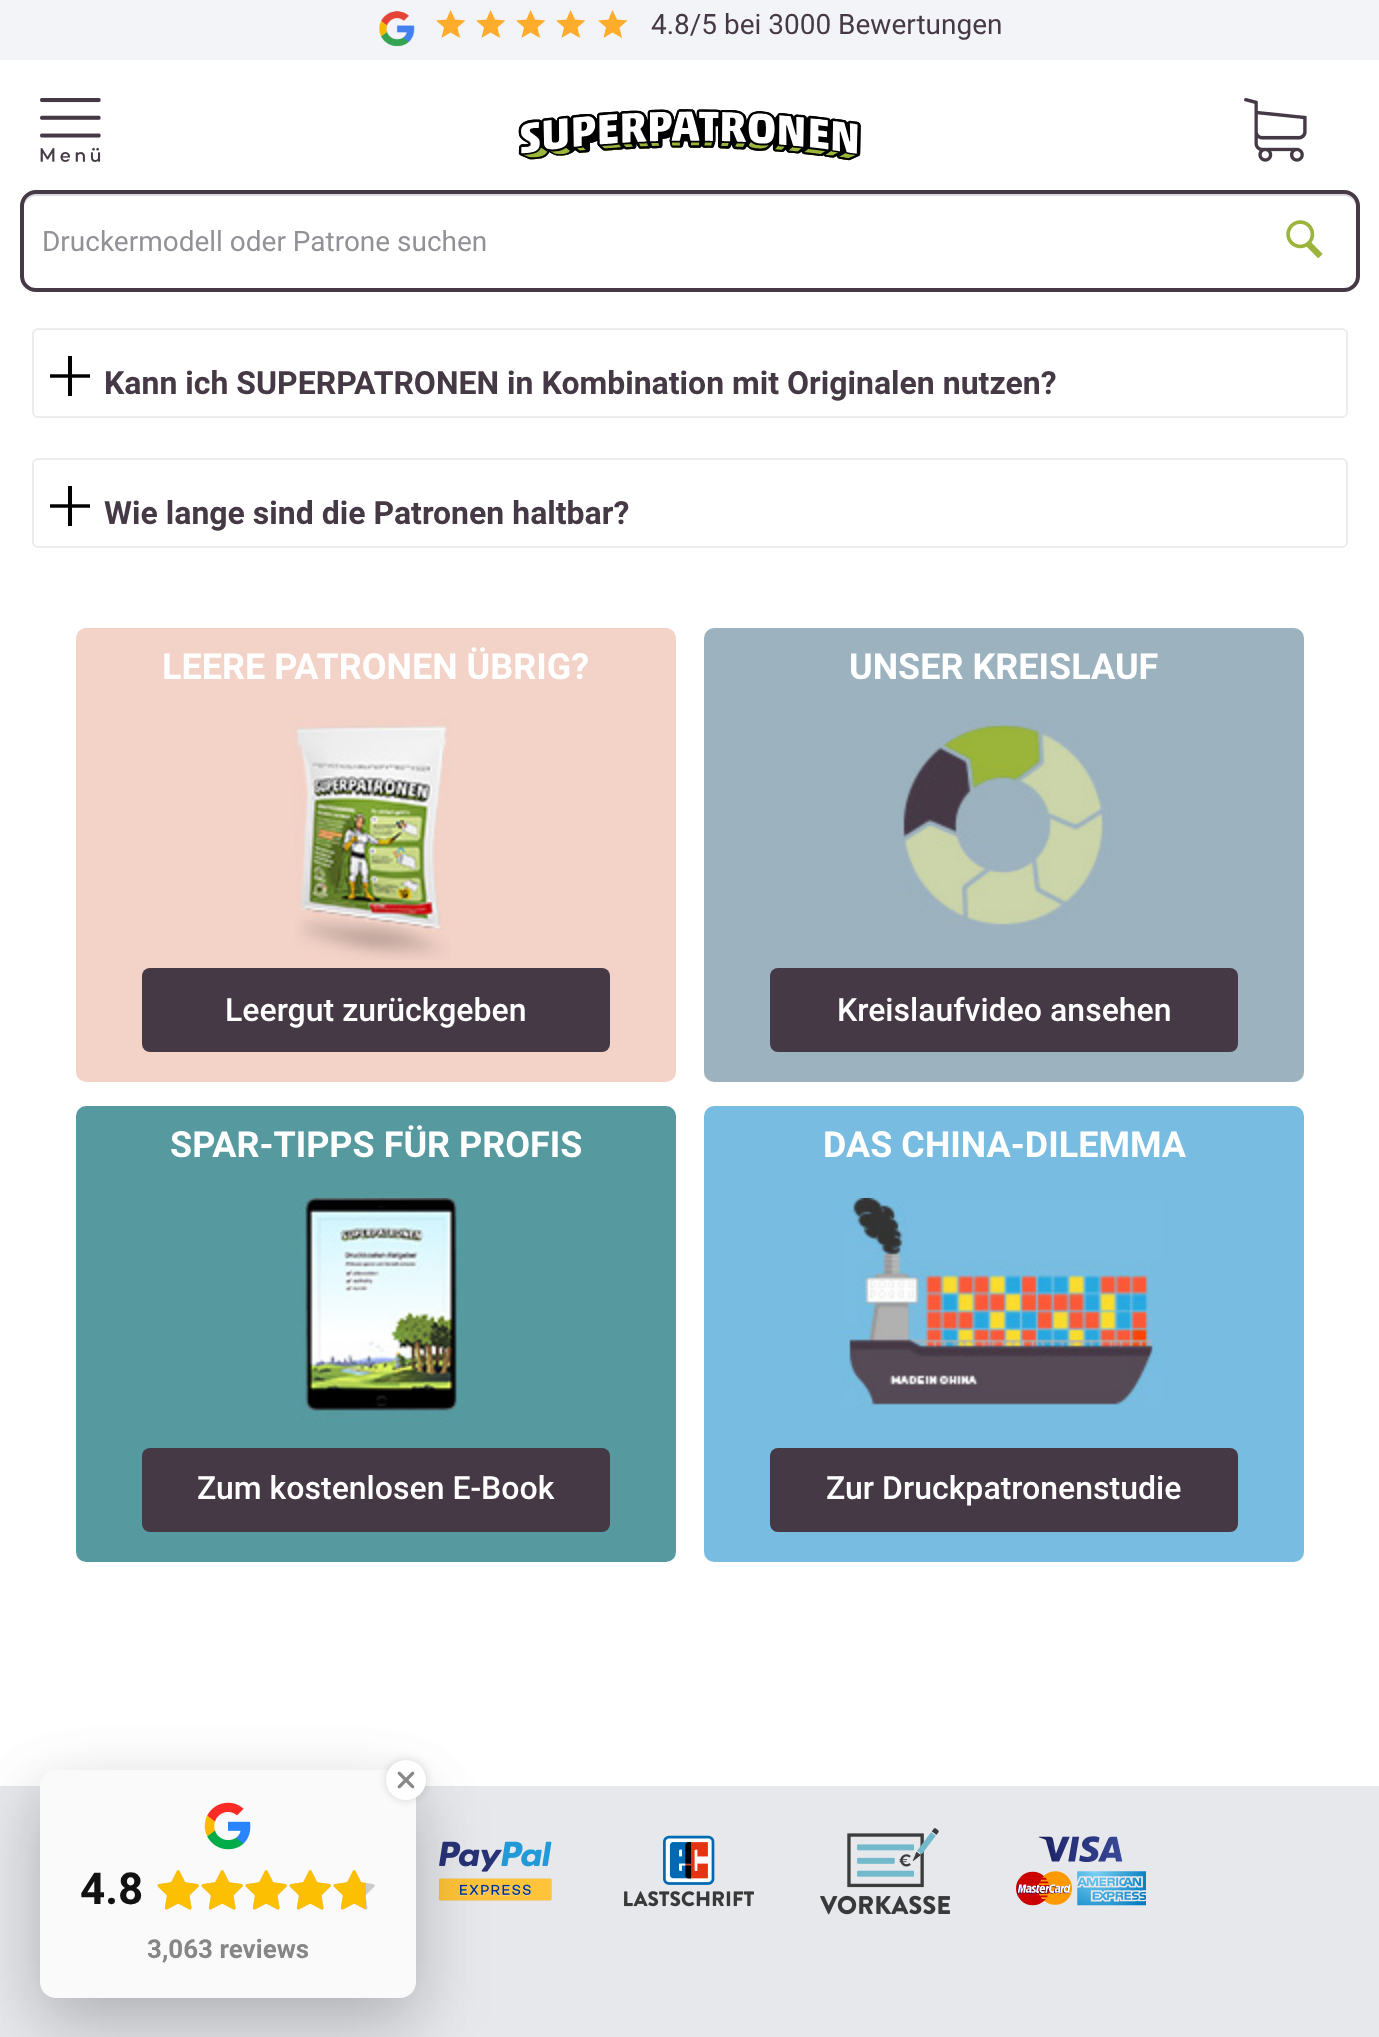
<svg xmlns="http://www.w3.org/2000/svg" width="1379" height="2037">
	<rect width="100%" height="100%" fill="#FFFFFF" />
	<rect x="0" y="0" width="1379" height="60" fill="#F3F4F8" />
	<image x="379" y="11" width="36" height="36" href="assets/img1.png" />
	<path d="M450.5 10L446.5 19.5L436 20.5L444 27.5L441.5 38L450.5 32.5L460 38L457.5 27.5L465.5 20.5L455 19.5Z" fill="#FEAC2C" />
	<path d="M490.5 10L486.5 19.5L476 20.5L484 27.5L481.5 38L490.5 32.5L500 38L497.5 27.5L505.5 20.5L495 19.5Z" fill="#FEAC2C" />
	<path d="M530.5 10L526.5 19.5L516 20.5L524 27.5L521.5 38L530.5 32.5L540 38L537.5 27.5L545.5 20.5L535 19.5Z" fill="#FEAC2C" />
	<path d="M570.5 10L566.5 19.5L556 20.5L564 27.5L561.5 38L570.5 32.5L580 38L577.5 27.5L585.5 20.5L575 19.5Z" fill="#FEAC2C" />
	<path d="M612.5 10L608.5 19.5L598 20.5L606 27.5L603.5 38L612.5 32.5L622 38L619.5 27.5L627.5 20.5L617 19.5Z" fill="#FEAC2C" />
	<text x="651" y="34" font-family="Roboto" font-size="28" fill="#463946">4.8/5 bei 3000 Bewertungen</text>
	<image x="518" y="109" width="343" height="52" href="assets/img2.png" />
	<image x="40" y="98" width="61" height="64" href="assets/img3.png" />
	<image x="1244" y="98" width="63" height="64" href="assets/img4.png" />
	<path d="M36 196H1344C1351 196 1356 201 1356 208V206C1356 199 1351 194 1344 194H36C29 194 24 199 24 206V208C24 201 29 196 36 196Z" fill="#DADAE5" />
	<rect x="22" y="192" width="1336" height="98" rx="14" fill="none" stroke="#463946" stroke-width="4" />
	<text x="42" y="251" font-family="Roboto" font-size="28" fill="#919197">Druckermodell oder Patrone suchen</text>
	<image x="1286" y="220" width="37" height="39" href="assets/img5.png" />
	<rect x="33" y="329" width="1314" height="88" rx="5" fill="none" stroke="#EDECEB" stroke-width="2" />
	<image x="50" y="356" width="40" height="40" href="assets/img6.png" />
	<text x="104" y="394" font-family="Roboto" font-size="32" font-weight="700" fill="#463946">Kann ich SUPERPATRONEN in Kombination mit Originalen nutzen?</text>
	<rect x="33" y="459" width="1314" height="88" rx="5" fill="none" stroke="#EDECEB" stroke-width="2" />
	<image x="50" y="486" width="40" height="40" href="assets/img6.png" />
	<text x="104" y="524" font-family="Roboto" font-size="32" font-weight="700" fill="#463946">Wie lange sind die Patronen haltbar?</text>
	<rect x="76" y="628" width="600" height="454" rx="10" fill="#F3D2C7" />
	<text x="162" y="679" font-family="Roboto" font-size="36" font-weight="700" fill="#FFFFFF">LEERE PATRONEN ÜBRIG?</text>
	<image x="294" y="718" width="156" height="242" href="assets/img7.png" />
	<rect x="142" y="968" width="468" height="84" rx="8" fill="#463946" />
	<text x="225" y="1021" font-family="Roboto" font-size="32" font-weight="500" fill="#FFFFFF">Leergut zurückgeben</text>
	<rect x="704" y="628" width="600" height="454" rx="10" fill="#9CB2BF" />
	<text x="849" y="679" font-family="Roboto" font-size="36" font-weight="700" fill="#FFFFFF">UNSER KREISLAUF</text>
	<image x="898" y="718" width="216" height="208" href="assets/img8.png" />
	<rect x="770" y="968" width="468" height="84" rx="8" fill="#463946" />
	<text x="837" y="1021" font-family="Roboto" font-size="32" font-weight="500" fill="#FFFFFF">Kreislaufvideo ansehen</text>
	<rect x="76" y="1106" width="600" height="456" rx="10" fill="#569AA0" />
	<text x="170" y="1157" font-family="Roboto" font-size="36" font-weight="700" fill="#FFFFFF">SPAR-TIPPS FÜR PROFIS</text>
	<image x="294" y="1198" width="170" height="224" href="assets/img9.png" />
	<rect x="142" y="1448" width="468" height="84" rx="8" fill="#463946" />
	<text x="197" y="1499" font-family="Roboto" font-size="32" font-weight="500" fill="#FFFFFF">Zum kostenlosen E-Book</text>
	<rect x="704" y="1106" width="600" height="456" rx="10" fill="#78BDE1" />
	<text x="823" y="1157" font-family="Roboto" font-size="36" font-weight="700" fill="#FFFFFF">DAS CHINA-DILEMMA</text>
	<image x="842" y="1198" width="320" height="208" href="assets/img10.png" />
	<rect x="770" y="1448" width="468" height="84" rx="8" fill="#463946" />
	<text x="826" y="1499" font-family="Roboto" font-size="32" font-weight="500" fill="#FFFFFF">Zur Druckpatronenstudie</text>
	<rect x="0" y="1786" width="1379" height="251" fill="#E6E8EC" />
	<image x="438" y="1841" width="114" height="60" href="assets/img11.png" />
	<image x="624" y="1835" width="130" height="72" href="assets/img12.png" />
	<image x="820" y="1828" width="130" height="87" href="assets/img13.png" />
	<image x="1016" y="1836" width="130" height="70" href="assets/img14.png" />
	<rect x="40" y="1790" width="376" height="228" rx="16" fill="#000000" fill-opacity="0.15" filter="blur(30px)" />
	<rect x="40" y="1800" width="376" height="228" rx="16" fill="#000000" fill-opacity="0.1" filter="blur(40px)" />
	<rect x="40" y="1770" width="376" height="228" rx="16" fill="#FAFAFA" />
	<rect x="386" y="1760" width="40" height="40" rx="20" fill="#000000" fill-opacity="0.15" filter="blur(4px)" />
	<circle cx="406" cy="1780" r="20" fill="#FFFFFF" />
	<image x="397" y="1771" width="18" height="18" href="assets/img15.png" />
	<image x="204" y="1802" width="47" height="48" href="assets/img16.png" />
	<text x="80" y="1904" font-family="Roboto" font-size="44" font-weight="700" fill="#111111">4.8</text>
	<image x="157" y="1870" width="42" height="40" href="assets/img17.png" />
	<image x="157" y="1870" width="42" height="40" href="assets/img18.png" />
	<image x="201" y="1870" width="42" height="40" href="assets/img17.png" />
	<image x="201" y="1870" width="42" height="40" href="assets/img18.png" />
	<image x="245" y="1870" width="42" height="40" href="assets/img17.png" />
	<image x="245" y="1870" width="42" height="40" href="assets/img18.png" />
	<image x="289" y="1870" width="42" height="40" href="assets/img17.png" />
	<image x="289" y="1870" width="42" height="40" href="assets/img18.png" />
	<image x="333" y="1870" width="42" height="40" href="assets/img17.png" />
	<image x="333" y="1870" width="33" height="40" href="assets/img19.png" />
	<text x="147" y="1958" font-family="Roboto" font-size="26" font-weight="700" fill="#868686">3,063 reviews</text>
</svg>
